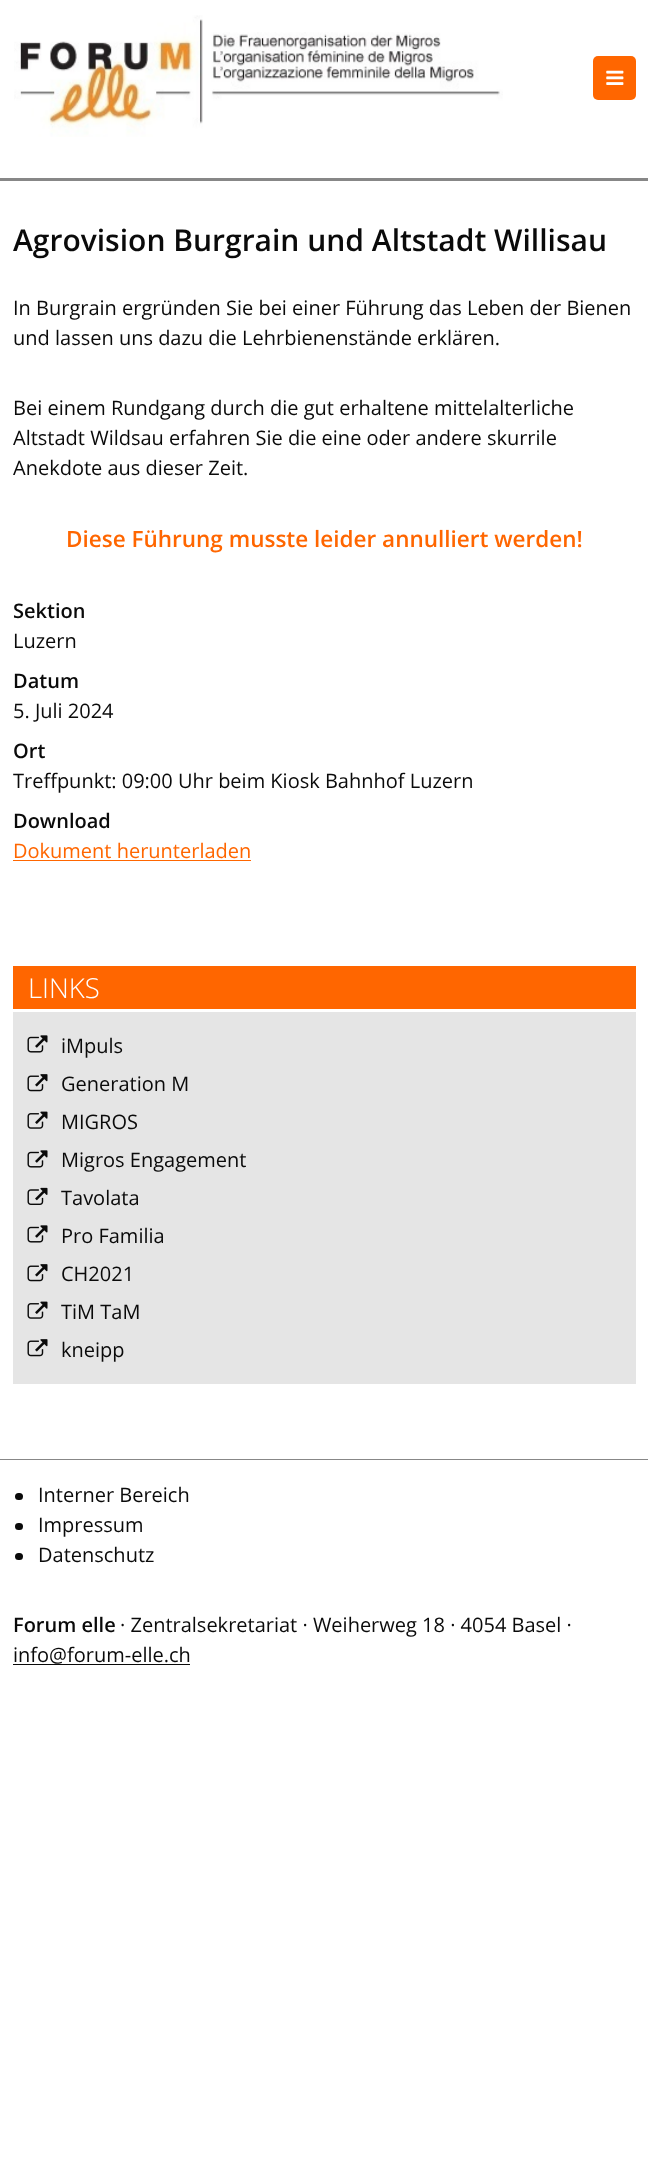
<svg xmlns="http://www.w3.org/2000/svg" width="648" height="2177">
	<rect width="100%" height="100%" fill="#FFFFFF" />
	<image x="14" y="15" width="489" height="122" href="assets/img1.png" />
	<rect x="593" y="56" width="43" height="44" rx="5" fill="#FF6600" />
	<image x="606" y="70" width="18" height="15" href="assets/img2.png" />
	<rect x="0" y="178" width="648" height="3" fill="#878787" />
	<text x="13" y="251" font-family="Open Sans" font-size="30" font-weight="600" fill="#0A0A0A">Agrovision Burgrain und Altstadt Willisau</text>
	<g font-family="Open Sans" font-size="20" fill="#0A0A0A">
		<text x="13" y="315">In Burgrain ergründen Sie bei einer Führung das Leben der Bienen</text>
		<text x="13" y="345">und lassen uns dazu die Lehrbienenstände erklären.</text>
		<text x="13" y="415">Bei einem Rundgang durch die gut erhaltene mittelalterliche</text>
		<text x="13" y="445">Altstadt Wildsau erfahren Sie die eine oder andere skurrile</text>
		<text x="13" y="475">Anekdote aus dieser Zeit.</text>
	</g>
	<text x="66" y="547" font-family="Open Sans" font-size="22.5" font-weight="600" fill="#FF6600">Diese Führung musste leider annulliert werden!</text>
	<text x="13" y="618" font-family="Open Sans" font-size="20" font-weight="600" fill="#0A0A0A">Sektion</text>
	<text x="13" y="648" font-family="Open Sans" font-size="20" fill="#0A0A0A">Luzern</text>
	<text x="13" y="688" font-family="Open Sans" font-size="20" font-weight="600" fill="#0A0A0A">Datum</text>
	<text x="13" y="718" font-family="Open Sans" font-size="20" fill="#0A0A0A">5. Juli 2024</text>
	<text x="13" y="758" font-family="Open Sans" font-size="20" font-weight="600" fill="#0A0A0A">Ort</text>
	<text x="13" y="788" font-family="Open Sans" font-size="20" fill="#0A0A0A">Treffpunkt: 09:00 Uhr beim Kiosk Bahnhof Luzern</text>
	<text x="13" y="828" font-family="Open Sans" font-size="20" font-weight="600" fill="#0A0A0A">Download</text>
	<text x="13" y="858" font-family="Open Sans" font-size="20" fill="#FF6600">Dokument herunterladen</text>
	<rect x="13" y="860" width="238" height="1" fill="#FF6600" />
	<rect x="13" y="1012" width="623" height="372" fill="#E5E5E5" />
	<rect x="13" y="966" width="623" height="43" fill="#FF6600" />
	<text x="28" y="998" font-family="Open Sans" font-size="27.5" font-weight="300" fill="#FFFFFF">LINKS</text>
	<image x="27" y="1035" width="21" height="18" href="assets/img3.png" />
	<text x="61" y="1053" font-family="Open Sans" font-size="20" fill="#0A0A0A">iMpuls</text>
	<image x="27" y="1074" width="21" height="18" href="assets/img4.png" />
	<text x="61" y="1091" font-family="Open Sans" font-size="20" fill="#0A0A0A">Generation M</text>
	<image x="27" y="1111" width="21" height="18" href="assets/img5.png" />
	<text x="61" y="1129" font-family="Open Sans" font-size="20" fill="#0A0A0A">MIGROS</text>
	<image x="27" y="1150" width="21" height="18" href="assets/img3.png" />
	<text x="61" y="1167" font-family="Open Sans" font-size="20" fill="#0A0A0A">Migros Engagement</text>
	<image x="27" y="1187" width="21" height="18" href="assets/img6.png" />
	<text x="61" y="1205" font-family="Open Sans" font-size="20" fill="#0A0A0A">Tavolata</text>
	<image x="27" y="1225" width="21" height="18" href="assets/img3.png" />
	<text x="61" y="1243" font-family="Open Sans" font-size="20" fill="#0A0A0A">Pro Familia</text>
	<image x="27" y="1264" width="21" height="18" href="assets/img4.png" />
	<text x="61" y="1281" font-family="Open Sans" font-size="20" fill="#0A0A0A">CH2021</text>
	<image x="27" y="1301" width="21" height="18" href="assets/img5.png" />
	<text x="61" y="1319" font-family="Open Sans" font-size="20" fill="#0A0A0A">TiM TaM</text>
	<image x="27" y="1339" width="21" height="18" href="assets/img4.png" />
	<text x="61" y="1357" font-family="Open Sans" font-size="20" fill="#0A0A0A">kneipp</text>
	<rect x="0" y="1459" width="648" height="1" fill="#878787" />
	<rect x="15" y="1493" width="8" height="7" rx="3.5" fill="#0A0A0A" />
	<text x="38" y="1502" font-family="Open Sans" font-size="20" fill="#0A0A0A">Interner Bereich</text>
	<rect x="15" y="1523" width="8" height="7" rx="3.5" fill="#0A0A0A" />
	<text x="38" y="1532" font-family="Open Sans" font-size="20" fill="#0A0A0A">Impressum</text>
	<rect x="15" y="1553" width="8" height="7" rx="3.5" fill="#0A0A0A" />
	<text x="38" y="1562" font-family="Open Sans" font-size="20" fill="#0A0A0A">Datenschutz</text>
	<text x="13" y="1632" font-family="Open Sans" font-size="20" font-weight="600" fill="#0A0A0A">Forum elle</text>
	<g font-family="Open Sans" font-size="20" fill="#0A0A0A">
		<text x="120" y="1632">· Zentralsekretariat · Weiherweg 18 · 4054 Basel ·</text>
		<text x="13" y="1662">info@forum-elle.ch</text>
	</g>
	<rect x="13" y="1664" width="177" height="1" fill="#0A0A0A" />
</svg>
